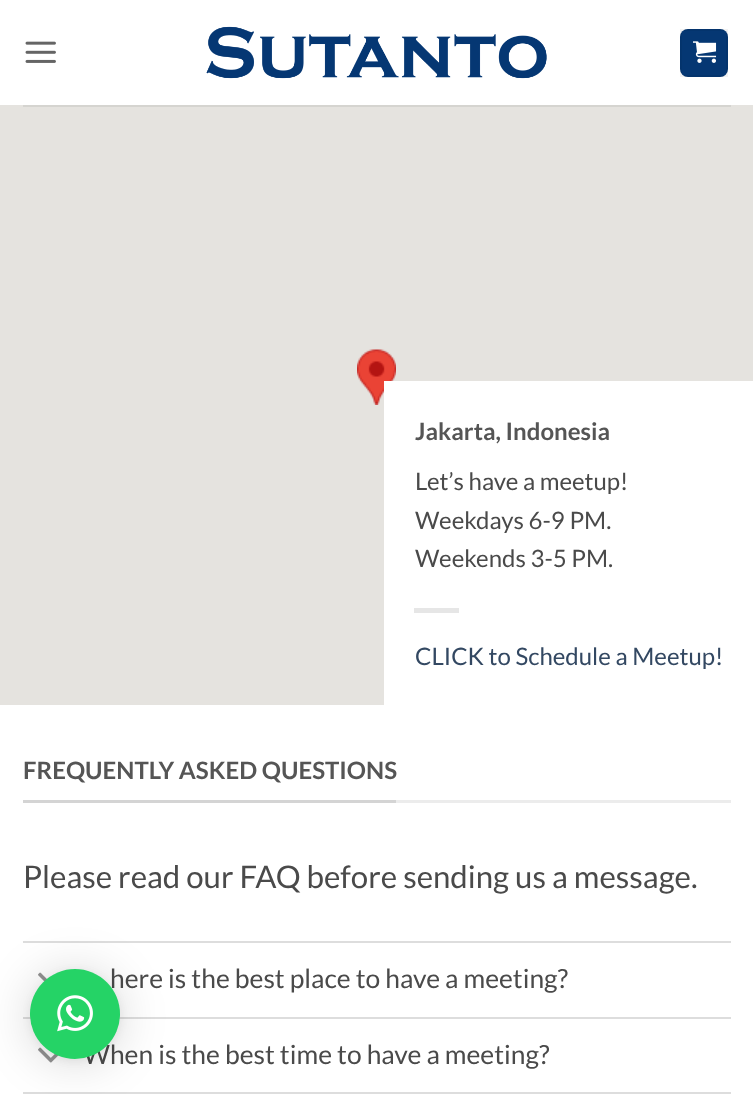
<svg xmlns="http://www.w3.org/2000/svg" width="753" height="1094">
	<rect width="100%" height="100%" fill="#FFFFFF" />
	<image x="25" y="41" width="31" height="22" href="assets/img1.png" />
	<image x="206" y="26" width="341" height="53" href="assets/img2.png" />
	<rect x="680" y="29" width="48" height="48" rx="8" fill="#053773" />
	<rect x="681" y="30" width="46" height="46" fill="none" stroke="#000000" stroke-opacity="0.05" stroke-width="2" />
	<image x="693" y="41" width="24" height="22" href="assets/img3.png" />
	<rect x="0" y="105" width="753" height="600" fill="#E5E3DF" />
	<rect x="23" y="105" width="708" height="2" fill="#D5D4D0" />
	<image x="357" y="349" width="39" height="56" href="assets/img4.png" />
	<rect x="384" y="381" width="369" height="324" fill="#FFFFFF" />
	<text x="415" y="440" font-family="Lato" font-size="24" font-weight="700" fill="#555555">Jakarta, Indonesia</text>
	<g font-family="Lato" font-size="24" fill="#4A4A4A">
		<text x="415" y="490">Let’s have a meetup!</text>
		<text x="415" y="529">Weekdays 6-9 PM.</text>
		<text x="415" y="567">Weekends 3-5 PM.</text>
	</g>
	<rect x="414" y="608" width="45" height="5" fill="#E6E6E6" />
	<text x="415" y="665" font-family="Lato" font-size="24" fill="#334862">CLICK to Schedule a Meetup!</text>
	<rect x="396" y="800" width="335" height="3" fill="#ECECEC" />
	<rect x="23" y="800" width="373" height="3" fill="#D4D4D4" />
	<text x="23" y="779" font-family="Lato" font-size="24" font-weight="700" fill="#555555">FREQUENTLY ASKED QUESTIONS</text>
	<text x="23" y="888" font-family="Lato" font-size="31.2" fill="#4A4A4A">Please read our FAQ before sending us a message.</text>
	<rect x="23" y="941" width="708" height="2" fill="#DDDDDD" />
	<image x="38" y="972" width="9" height="10" href="assets/img5.png" />
	<text x="110" y="988" font-family="Lato" font-size="26.4" fill="#4A4A4A">here is the best place to have a meeting?</text>
	<rect x="23" y="1017" width="708" height="2" fill="#DDDDDD" />
	<image x="38" y="1047" width="21" height="16" href="assets/img6.png" />
	<text x="83" y="1064" font-family="Lato" font-size="26.4" fill="#4A4A4A">When is the best time to have a meeting?</text>
	<rect x="23" y="1092" width="708" height="2" fill="#DDDDDD" />
	<rect x="30" y="972" width="90" height="90" rx="45" fill="#000000" fill-opacity="0.16" filter="blur(24px)" />
	<rect x="30" y="971" width="90" height="90" rx="45" fill="#000000" fill-opacity="0.06" filter="blur(4.5px)" />
	<circle cx="75" cy="1014" r="45" fill="#25D366" />
	<image x="57" y="995" width="36" height="37" href="assets/img7.png" />
</svg>
